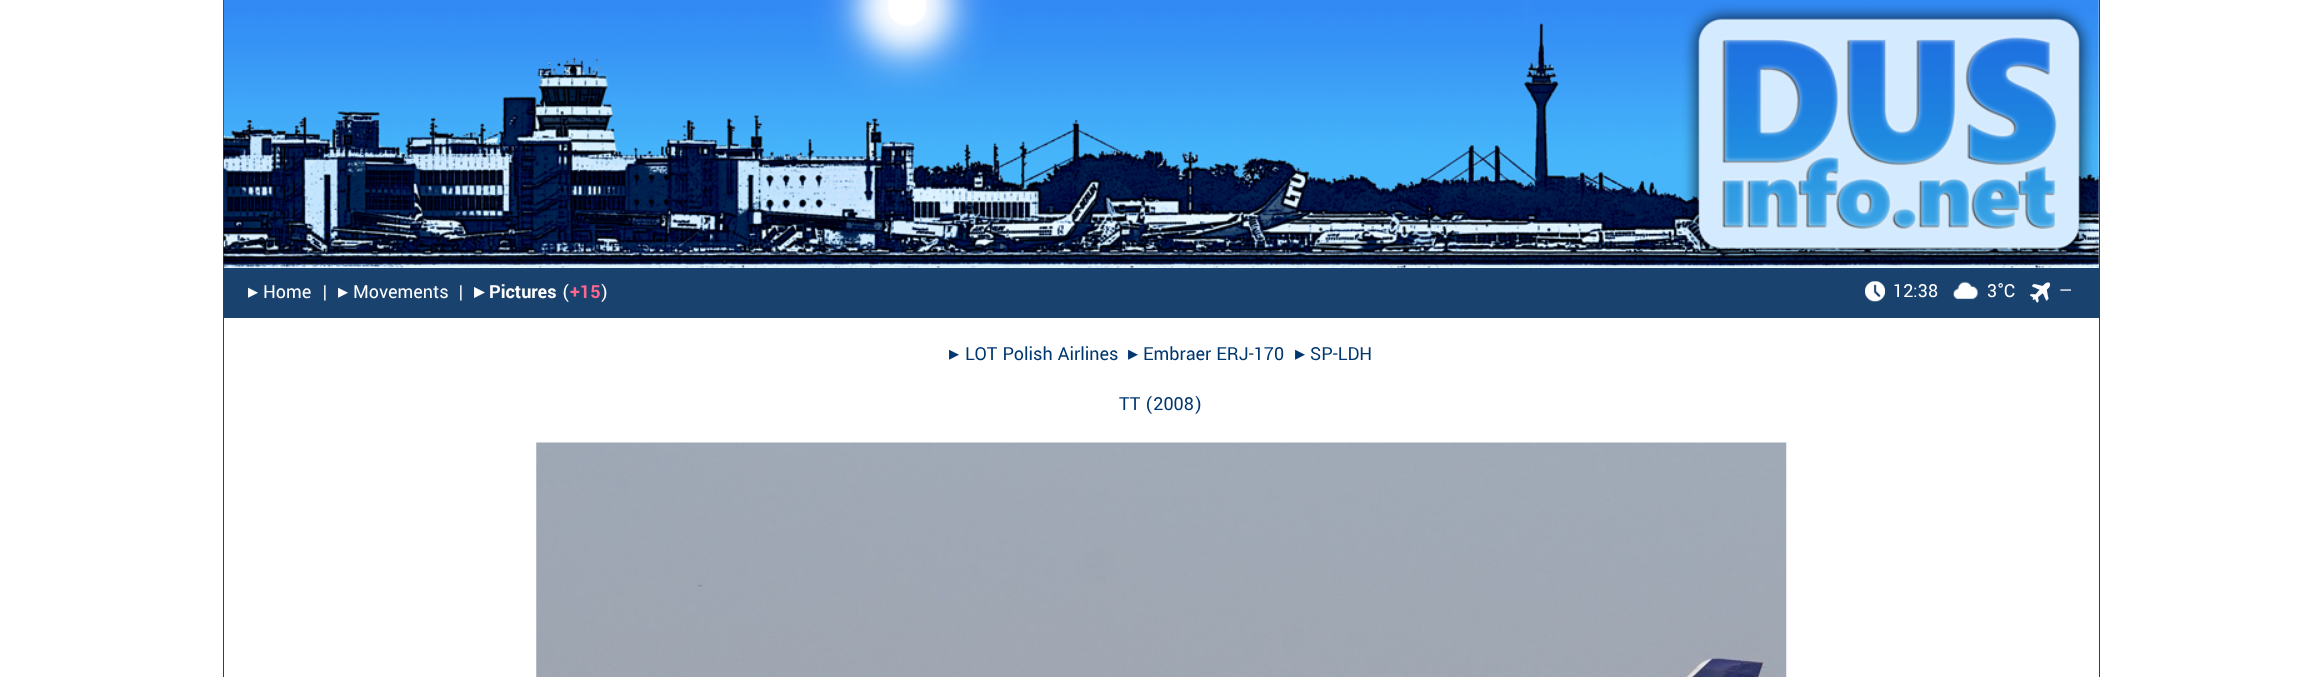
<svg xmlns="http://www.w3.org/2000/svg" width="2321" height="677">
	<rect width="100%" height="100%" fill="#FFFFFF" />
	<rect x="2099" y="0" width="1" height="677" fill="#1A436B" />
	<rect x="223" y="0" width="1" height="677" fill="#1A436B" />
	<image x="223" y="0" width="1876" height="268" href="assets/img1.png" />
	<rect x="224" y="268" width="1875" height="50" fill="#19426E" />
	<text x="248" y="298" font-family="DejaVu Sans" font-size="20" fill="#FFFFFF">▸︎</text>
	<g font-family="Yantramanav" font-size="20" fill="#FFFFFF">
		<text x="263" y="298">Home</text>
		<text x="322" y="298">|</text>
	</g>
	<text x="338" y="298" font-family="DejaVu Sans" font-size="20" fill="#FFFFFF">▸︎</text>
	<g font-family="Yantramanav" font-size="20" fill="#FFFFFF">
		<text x="353" y="298">Movements</text>
		<text x="458" y="298">|</text>
	</g>
	<text x="474" y="298" font-family="DejaVu Sans" font-size="20" font-weight="700" fill="#FFFFFF">▸︎</text>
	<text x="489" y="298" font-family="Yantramanav" font-size="20" font-weight="700" fill="#FFFFFF">Pictures</text>
	<text x="562" y="298" font-family="Yantramanav" font-size="20" fill="#FFFFFF">(</text>
	<text x="570" y="298" font-family="Yantramanav" font-size="20" font-weight="700" fill="#FF668E">+15</text>
	<text x="600" y="298" font-family="Yantramanav" font-size="20" fill="#FFFFFF">)</text>
	<image x="1865" y="281" width="20" height="21" href="assets/img2.png" />
	<text x="1893" y="297" font-family="Yantramanav" font-size="20" fill="#FFFFFF">12:38</text>
	<image x="1953" y="281" width="25" height="19" href="assets/img3.png" />
	<text x="1987" y="297" font-family="Yantramanav" font-size="20" fill="#FFFFFF">3°C</text>
	<image x="2030" y="282" width="20" height="21" href="assets/img4.png" />
	<text x="2059" y="297" font-family="Yantramanav" font-size="20" fill="#FFFFFF">—</text>
	<text x="949" y="360" font-family="DejaVu Sans" font-size="20" fill="#003770">▸︎</text>
	<text x="965" y="360" font-family="Yantramanav" font-size="20" fill="#003770">LOT Polish Airlines</text>
	<text x="1128" y="360" font-family="DejaVu Sans" font-size="20" fill="#003770">▸︎</text>
	<text x="1143" y="360" font-family="Yantramanav" font-size="20" fill="#003770">Embraer ERJ-170</text>
	<text x="1295" y="360" font-family="DejaVu Sans" font-size="20" fill="#003770">▸︎</text>
	<g font-family="Yantramanav" font-size="20" fill="#003770">
		<text x="1310" y="360">SP-LDH</text>
		<text x="1119" y="410">TT (2008)</text>
	</g>
	<image x="536" y="442" width="1251" height="235" href="assets/img5.png" />
</svg>
